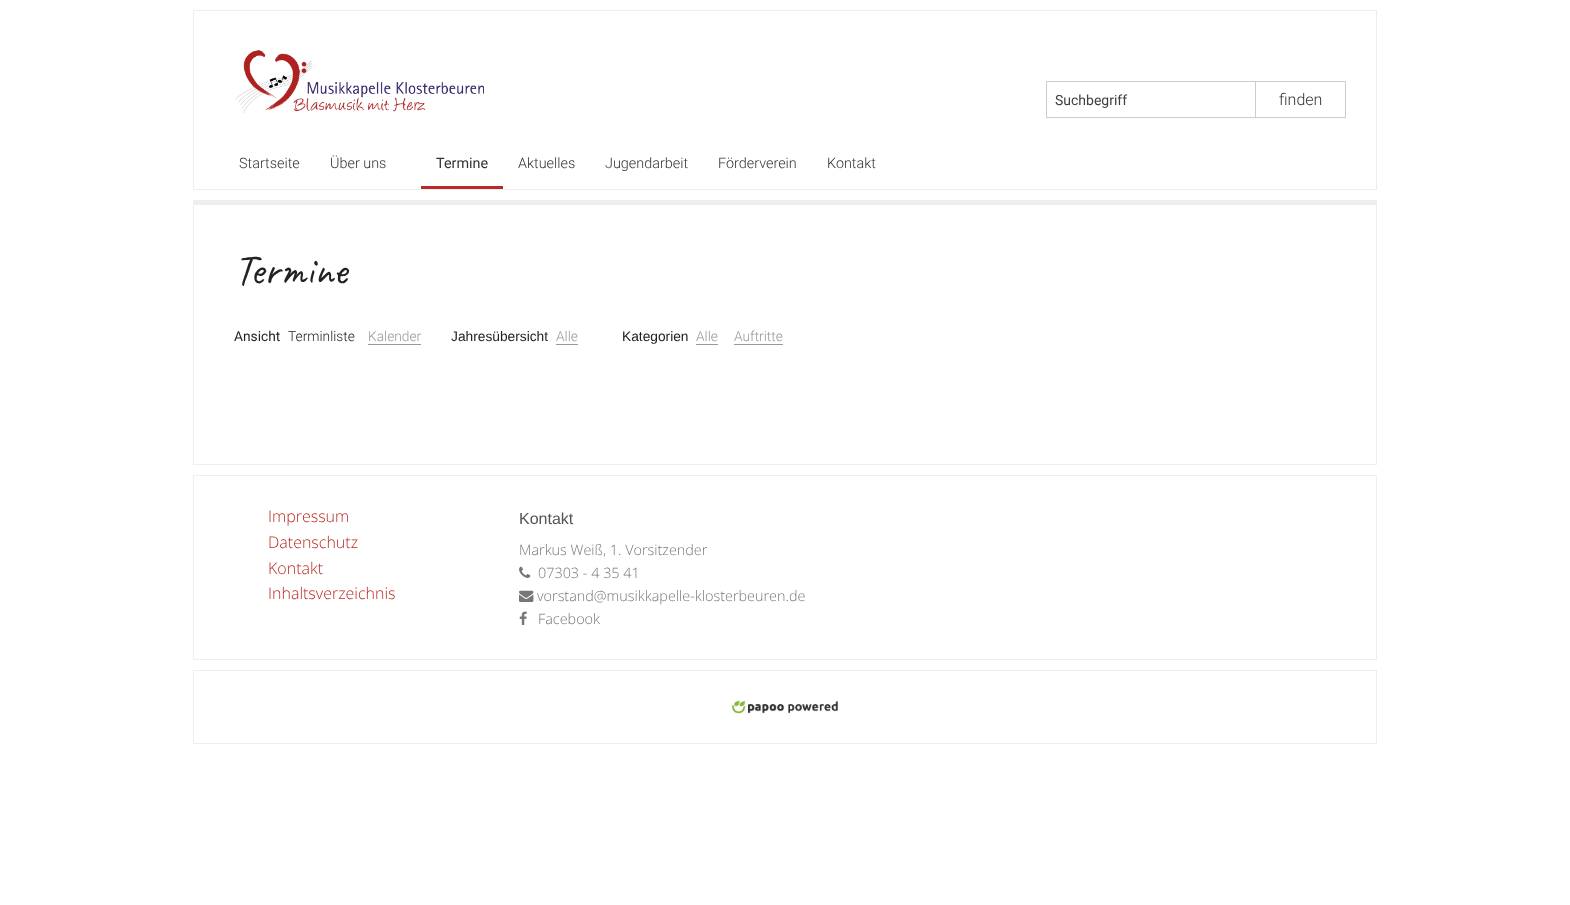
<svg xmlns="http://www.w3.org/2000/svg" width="1570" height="905">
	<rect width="100%" height="100%" fill="#FFFFFF" />
	<rect x="193.5" y="10.5" width="1183" height="179" fill="none" stroke="#EEEEEE" />
	<image x="235" y="50" width="249" height="63" href="assets/img1.png" />
	<rect x="1046.5" y="81.5" width="209" height="36" fill="none" stroke="#CCCCCC" />
	<text x="1055" y="105" font-family="Roboto" font-size="14" fill="#404040">Suchbegriff</text>
	<rect x="1256" y="81" width="90" height="1" fill="#CCCCCC" />
	<rect x="1345" y="81" width="1" height="37" fill="#CCCCCC" />
	<rect x="1256" y="117" width="90" height="1" fill="#CCCCCC" />
	<text x="1279" y="105" font-family="Roboto" font-size="16" font-weight="300" fill="#333333">finden</text>
	<g font-family="Roboto" font-size="14.4" font-weight="300" fill="#333333">
		<text x="239" y="168">Startseite</text>
		<text x="330" y="168">Über uns</text>
	</g>
	<rect x="421" y="186" width="82" height="3" fill="#B92B24" />
	<text x="436" y="168" font-family="Roboto" font-size="14.4" fill="#333333">Termine</text>
	<g font-family="Roboto" font-size="14.4" font-weight="300" fill="#333333">
		<text x="518" y="168">Aktuelles</text>
		<text x="605" y="168">Jugendarbeit</text>
		<text x="718" y="168">Förderverein</text>
		<text x="827" y="168">Kontakt</text>
	</g>
	<rect x="193" y="200" width="1184" height="2" fill="#EEEEEE" />
	<rect x="193.5" y="202.5" width="1183" height="262" fill="none" stroke="#EEEEEE" />
	<rect x="194" y="203" width="1182" height="2" fill="#EEEEEE" />
	<text x="234" y="284" font-family="Caveat" font-size="43" fill="#222222">Termine</text>
	<text x="234" y="341" font-family="Roboto" font-size="13.75" fill="#222222">Ansicht</text>
	<text x="288" y="341" font-family="Roboto" font-size="13.75" font-weight="300" fill="#222222">Terminliste</text>
	<text x="368" y="341" font-family="Roboto" font-size="13.75" font-weight="300" fill="#999999">Kalender</text>
	<rect x="368" y="344" width="53" height="1" fill="#999999" />
	<text x="451" y="341" font-family="Liberation Sans" font-size="13.75" fill="#222222">Jahresübersicht</text>
	<text x="556" y="341" font-family="Roboto" font-size="13.75" font-weight="300" fill="#999999">Alle</text>
	<rect x="556" y="344" width="22" height="1" fill="#999999" />
	<text x="622" y="341" font-family="Liberation Sans" font-size="13.75" fill="#222222">Kategorien</text>
	<text x="696" y="341" font-family="Roboto" font-size="13.75" font-weight="300" fill="#999999">Alle</text>
	<rect x="696" y="344" width="22" height="1" fill="#999999" />
	<text x="734" y="341" font-family="Roboto" font-size="13.75" font-weight="300" fill="#999999">Auftritte</text>
	<rect x="734" y="344" width="49" height="1" fill="#999999" />
	<rect x="193.5" y="475.5" width="1183" height="184" fill="none" stroke="#EEEEEE" />
	<g font-family="Open Sans" font-size="16" font-weight="300" fill="#B92B24">
		<text x="268" y="522">Impressum</text>
		<text x="268" y="548">Datenschutz</text>
		<text x="268" y="574">Kontakt</text>
		<text x="268" y="599">Inhaltsverzeichnis</text>
	</g>
	<text x="519" y="524" font-family="Liberation Sans" font-size="16" fill="#555454">Kontakt</text>
	<text x="519" y="555" font-family="Open Sans" font-size="14.4" font-weight="300" fill="#777777">Markus Weiß, 1. Vorsitzender</text>
	<image x="519" y="566" width="12" height="12" href="assets/img2.png" />
	<text x="538" y="578" font-family="Open Sans" font-size="14.4" font-weight="300" fill="#777777">07303 - 4 35 41</text>
	<image x="519" y="590" width="15" height="12" href="assets/img3.png" />
	<text x="537" y="601" font-family="Open Sans" font-size="14.4" font-weight="300" fill="#777777">vorstand@musikkapelle-klosterbeuren.de</text>
	<image x="519" y="611" width="8" height="14" href="assets/img4.png" />
	<text x="538" y="624" font-family="Open Sans" font-size="14.4" font-weight="300" fill="#777777">Facebook</text>
	<rect x="193.5" y="670.5" width="1183" height="73" fill="none" stroke="#EEEEEE" />
	<image x="732" y="700" width="106" height="14" href="assets/img5.png" />
</svg>
